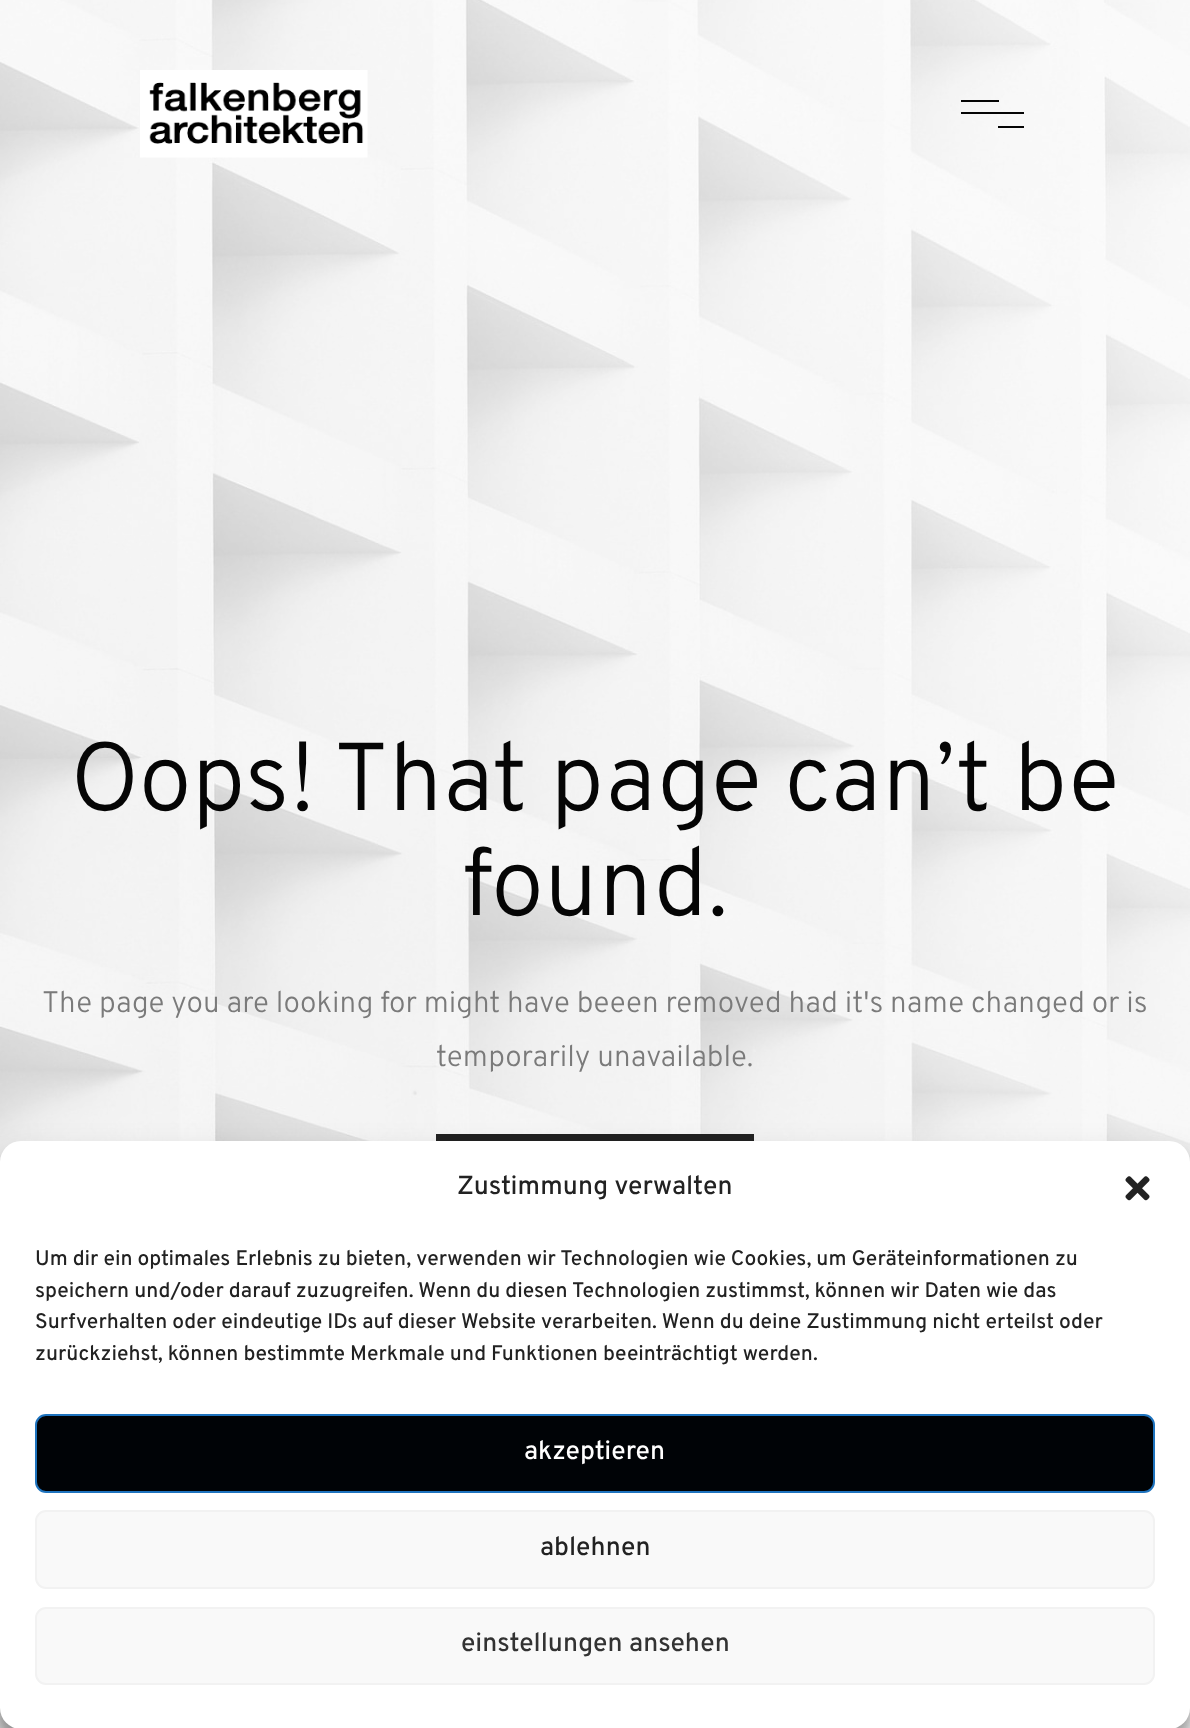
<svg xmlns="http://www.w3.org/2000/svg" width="1190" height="1728">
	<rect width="100%" height="100%" fill="#FFFFFF" />
	<image x="0" y="0" width="1190" height="1728" href="assets/img2.png" />
	<image x="140" y="70" width="228" height="88" href="assets/img1.png" />
	<rect x="961" y="100" width="38" height="2" fill="#050505" />
	<rect x="961" y="112" width="63" height="2" fill="#050505" />
	<rect x="998" y="126" width="26" height="2" fill="#050505" />
	<g font-family="Overpass" font-size="96.25" font-weight="300" fill="#050505">
		<text x="70" y="810">Oops! That page can’t be</text>
		<text x="462" y="915">found.</text>
	</g>
	<g font-family="Overpass" font-size="29.75" font-weight="300" fill="#7A7A7A">
		<text x="42" y="1012">The page you are looking for might have beeen removed had it's name changed or is</text>
		<text x="436" y="1066">temporarily unavailable.</text>
	</g>
	<rect x="436" y="1134" width="318" height="7" fill="#212121" />
	<rect x="0" y="1152" width="1190" height="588" rx="21" fill="#000000" fill-opacity="0.23" filter="blur(5px)" />
	<rect x="0" y="1159" width="1190" height="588" rx="21" fill="#000000" fill-opacity="0.19" filter="blur(17.5px)" />
	<rect x="0" y="1141" width="1190" height="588" rx="21" fill="#FFFFFF" />
	<text x="457" y="1194" font-family="Overpass" font-size="26.25" font-weight="500" fill="#222222">Zustimmung verwalten</text>
	<image x="1125" y="1176" width="25" height="25" href="assets/img3.png" />
	<g font-family="Overpass" font-size="21" font-weight="500" fill="#222222">
		<text x="35" y="1265">Um dir ein optimales Erlebnis zu bieten, verwenden wir Technologien wie Cookies, um Geräteinformationen zu</text>
		<text x="35" y="1297">speichern und/oder darauf zuzugreifen. Wenn du diesen Technologien zustimmst, können wir Daten wie das</text>
		<text x="35" y="1328">Surfverhalten oder eindeutige IDs auf dieser Website verarbeiten. Wenn du deine Zustimmung nicht erteilst oder</text>
		<text x="35" y="1360">zurückziehst, können bestimmte Merkmale und Funktionen beeinträchtigt werden.</text>
	</g>
	<rect x="36" y="1415" width="1118" height="77" rx="10" fill="#000306" stroke="#1E73BE" stroke-width="2" />
	<text x="524" y="1459" font-family="Overpass" font-size="26.25" font-weight="500" fill="#FFFFFF">akzeptieren</text>
	<rect x="36" y="1511" width="1118" height="77" rx="10" fill="#F9F9F9" stroke="#F2F2F2" stroke-width="2" />
	<text x="540" y="1555" font-family="Overpass" font-size="26.25" font-weight="500" fill="#222222">ablehnen</text>
	<rect x="36" y="1608" width="1118" height="76" rx="10" fill="#F9F9F9" stroke="#F2F2F2" stroke-width="2" />
	<text x="461" y="1651" font-family="Overpass" font-size="26.25" font-weight="500" fill="#333333">einstellungen ansehen</text>
</svg>
